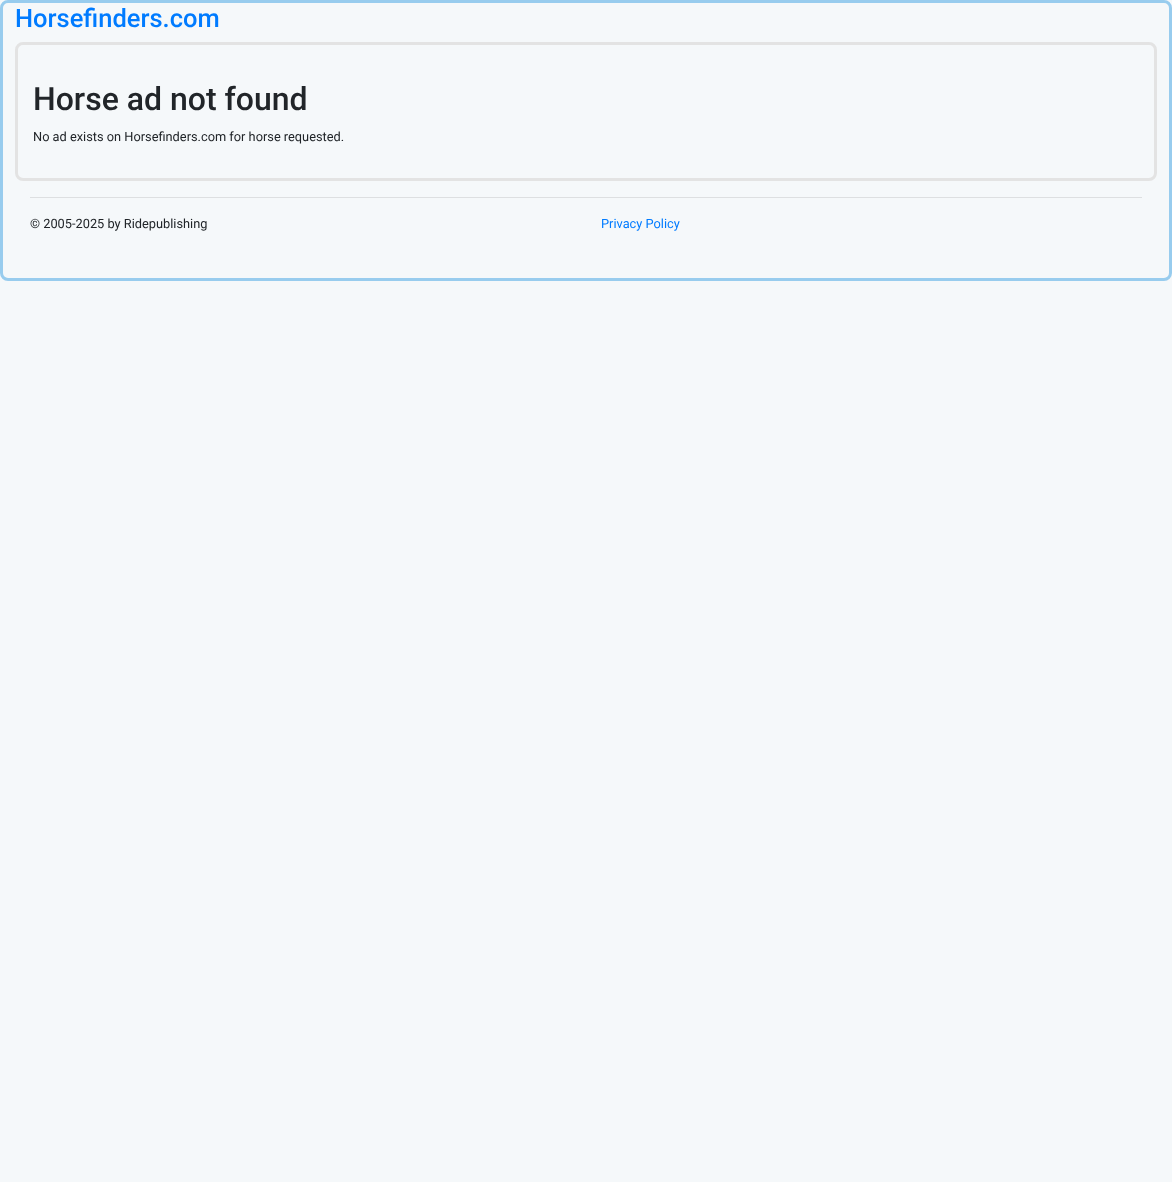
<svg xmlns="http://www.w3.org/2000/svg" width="1172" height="1182">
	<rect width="100%" height="100%" fill="#F5F8FA" />
	<rect x="1.5" y="1.5" width="1169" height="278" rx="6.5" fill="none" stroke="#98CCEE" stroke-width="3" />
	<text x="15" y="27" font-family="Roboto" font-size="25.5" font-weight="500" fill="#007BFF">Horsefinders.com</text>
	<rect x="16.5" y="43.5" width="1139" height="136" rx="6.5" fill="none" stroke="#E3E3E3" stroke-width="3" />
	<text x="33" y="110" font-family="Roboto" font-size="32" font-weight="500" fill="#212529">Horse ad not found</text>
	<text x="33" y="141" font-family="Roboto" font-size="12.8" fill="#212529">No ad exists on Horsefinders.com for horse requested.</text>
	<rect x="30" y="197" width="1112" height="1" fill="#DDDFE1" />
	<text x="30" y="228" font-family="Roboto" font-size="12.8" fill="#212529">© 2005-2025 by Ridepublishing</text>
	<text x="601" y="228" font-family="Roboto" font-size="12.8" fill="#007BFF">Privacy Policy</text>
</svg>
